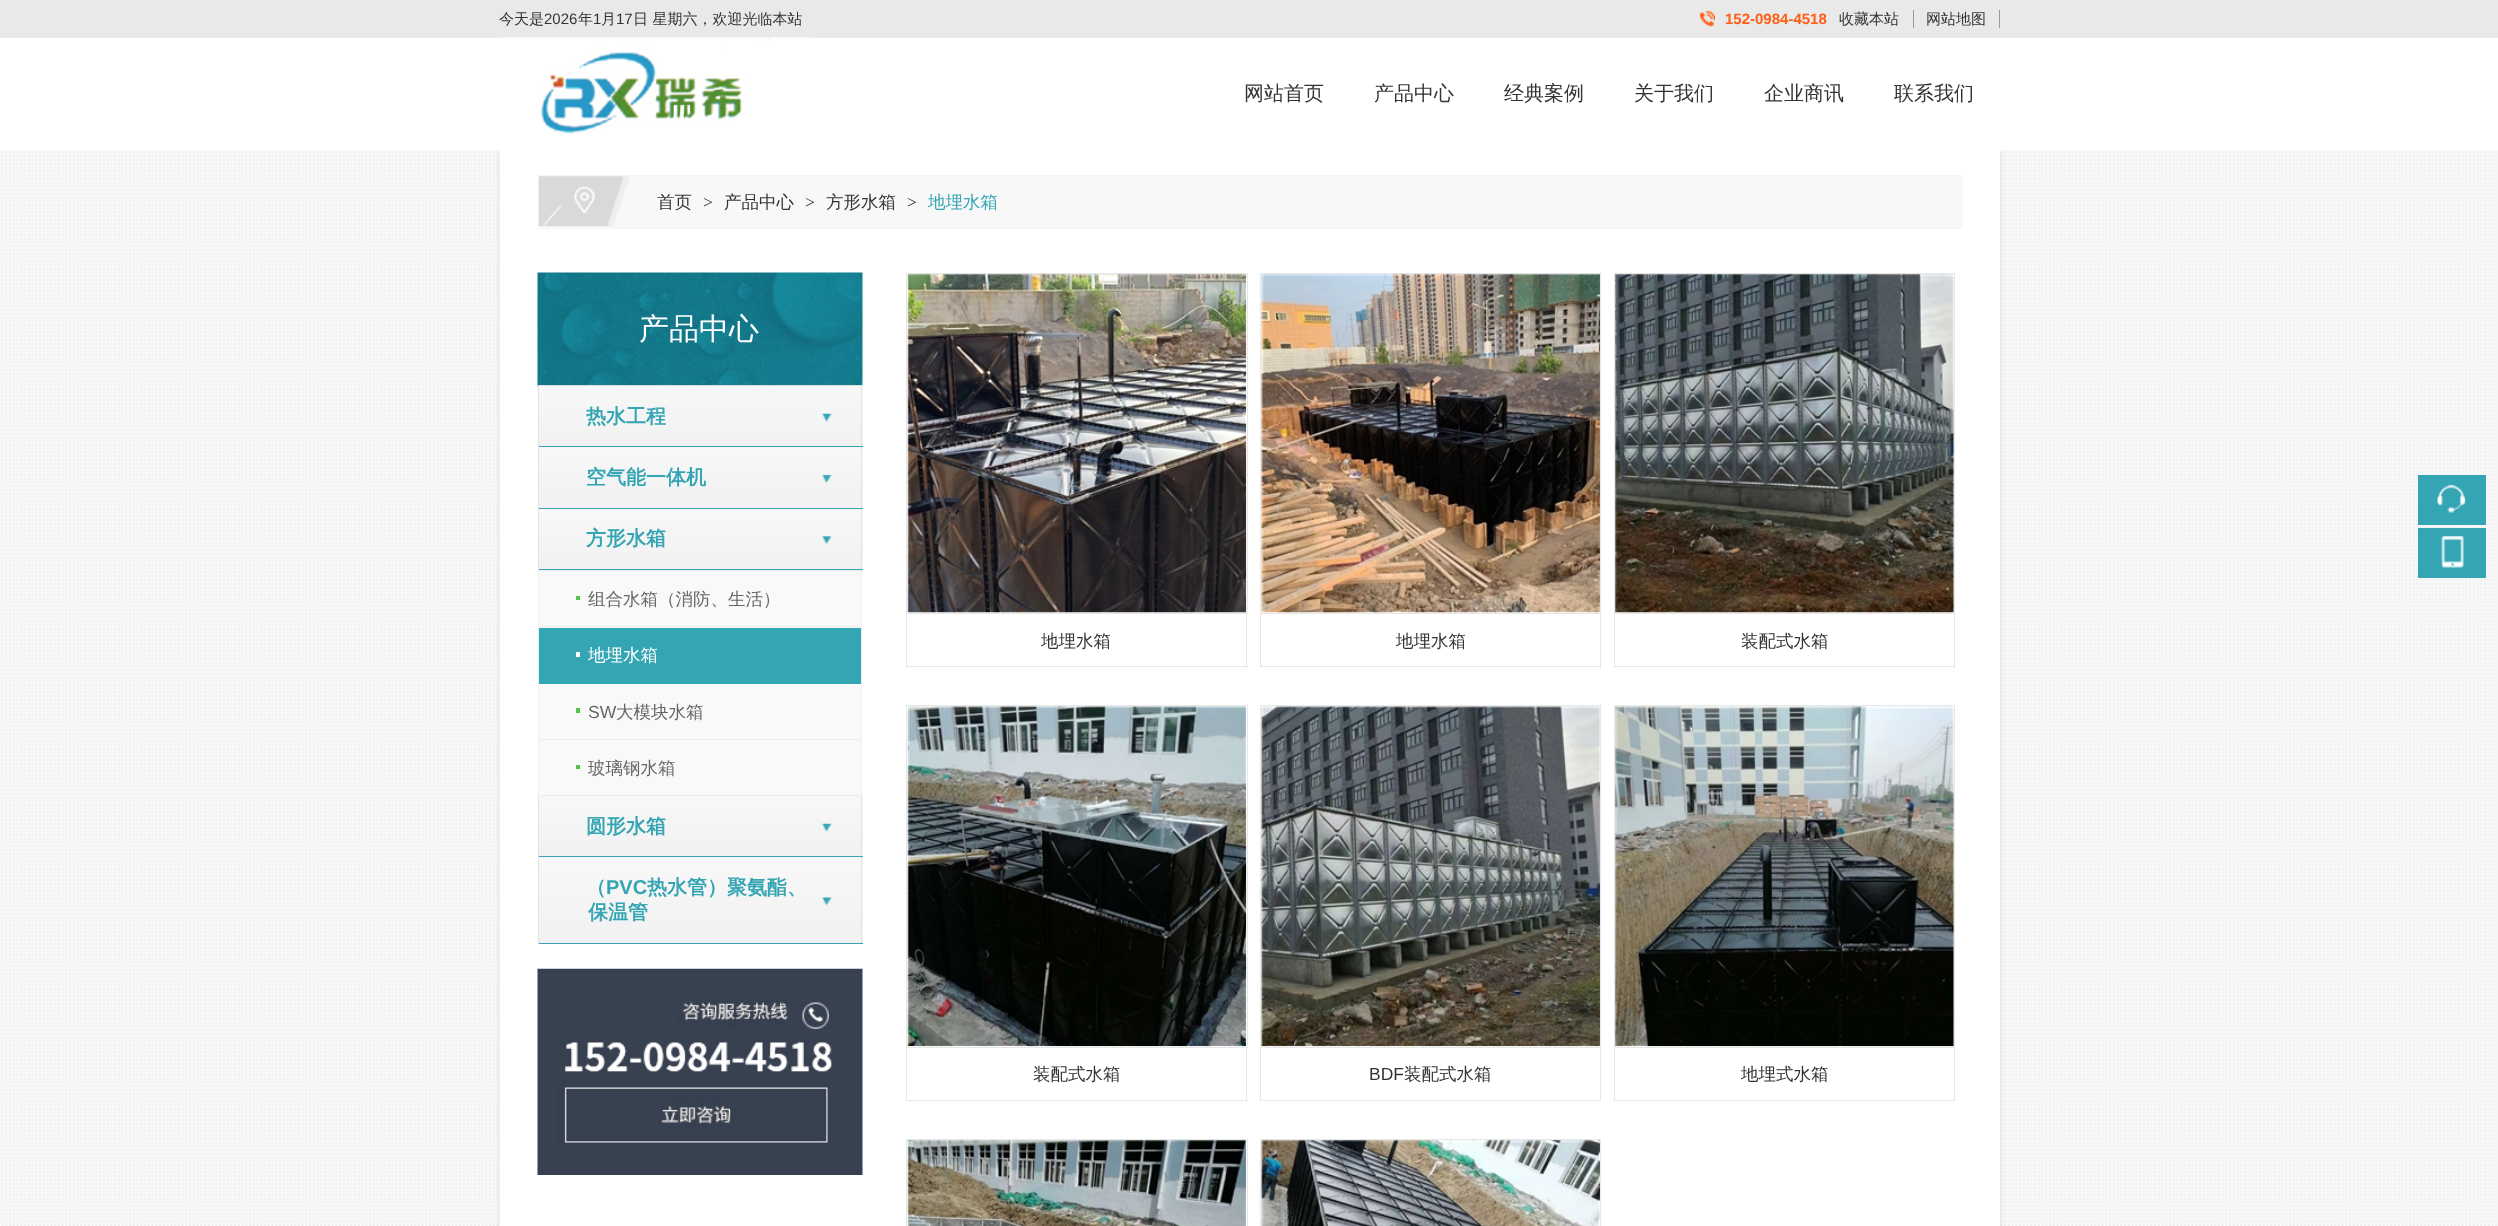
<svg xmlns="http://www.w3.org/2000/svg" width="2498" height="1226">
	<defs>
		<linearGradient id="g1" gradientUnits="userSpaceOnUse" x1="700" y1="386" x2="700" y2="446"><stop offset="0" stop-color="#F9F8F8" /><stop offset="1" stop-color="#F1F1F1" /></linearGradient>
		<linearGradient id="g2" gradientUnits="userSpaceOnUse" x1="700" y1="446" x2="700" y2="506"><stop offset="0" stop-color="#F9F8F8" /><stop offset="1" stop-color="#F1F1F1" /></linearGradient>
		<linearGradient id="g3" gradientUnits="userSpaceOnUse" x1="700" y1="448" x2="700" y2="508"><stop offset="0" stop-color="#F9F8F8" /><stop offset="1" stop-color="#F1F1F1" /></linearGradient>
		<linearGradient id="g4" gradientUnits="userSpaceOnUse" x1="700" y1="509" x2="700" y2="569"><stop offset="0" stop-color="#F9F8F8" /><stop offset="1" stop-color="#F1F1F1" /></linearGradient>
		<linearGradient id="g5" gradientUnits="userSpaceOnUse" x1="700" y1="796" x2="700" y2="856"><stop offset="0" stop-color="#F9F8F8" /><stop offset="1" stop-color="#F1F1F1" /></linearGradient>
		<linearGradient id="g6" gradientUnits="userSpaceOnUse" x1="700" y1="856" x2="700" y2="916"><stop offset="0" stop-color="#F9F8F8" /><stop offset="1" stop-color="#F1F1F1" /></linearGradient>
		<linearGradient id="g7" gradientUnits="userSpaceOnUse" x1="700" y1="858" x2="700" y2="943"><stop offset="0" stop-color="#F9F8F8" /><stop offset="1" stop-color="#F1F1F1" /></linearGradient>
	</defs>
	<rect width="100%" height="100%" fill="#E9E9E9" />
	<text x="499" y="24" font-family="WenQuanYi Zen Hei" font-size="15" font-weight="500" fill="#333333">今天是</text>
	<text x="544" y="24" font-family="Liberation Sans" font-size="15" fill="#333333">2026</text>
	<text x="578" y="24" font-family="WenQuanYi Zen Hei" font-size="15" font-weight="500" fill="#333333">年</text>
	<text x="593" y="24" font-family="Liberation Sans" font-size="15" fill="#333333">1</text>
	<text x="601" y="24" font-family="WenQuanYi Zen Hei" font-size="15" font-weight="500" fill="#333333">月</text>
	<text x="616" y="24" font-family="Liberation Sans" font-size="15" fill="#333333">17</text>
	<text x="633" y="24" font-family="WenQuanYi Zen Hei" font-size="15" font-weight="500" fill="#333333">日 星期六，欢迎光临本站</text>
	<image x="1700" y="11" width="15" height="16" href="assets/img1.png" />
	<text x="1725" y="24" font-family="Liberation Sans" font-size="15" font-weight="700" fill="#FF5E14">152-0984-4518</text>
	<text x="1839" y="24" font-family="WenQuanYi Zen Hei" font-size="15" font-weight="500" fill="#333333">收藏本站</text>
	<rect x="1913" y="10" width="1" height="18" fill="#999999" />
	<text x="1926" y="24" font-family="WenQuanYi Zen Hei" font-size="15" font-weight="500" fill="#333333">网站地图</text>
	<rect x="1999" y="10" width="1" height="18" fill="#999999" />
	<image x="0" y="150" width="2498" height="1076" href="assets/img3.png" />
	<rect x="500" y="151" width="1500" height="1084" fill="#000000" fill-opacity="0.1" filter="blur(3px)" />
	<rect x="0" y="38" width="2498" height="112" fill="#FFFFFF" />
	<image x="500" y="37" width="313" height="98" href="assets/img2.png" />
	<g font-family="WenQuanYi Zen Hei" font-size="20" font-weight="500" fill="#333333">
		<text x="1244" y="100">网站首页</text>
		<text x="1374" y="100">产品中心</text>
		<text x="1504" y="100">经典案例</text>
		<text x="1634" y="100">关于我们</text>
		<text x="1764" y="100">企业商讯</text>
		<text x="1894" y="100">联系我们</text>
	</g>
	<rect x="500" y="150" width="1500" height="1076" fill="#FFFFFF" />
	<rect x="538.5" y="175.5" width="1424" height="53" fill="#F9F8F8" stroke="#FAF5F0" />
	<image x="538" y="176" width="92" height="51" href="assets/img4.png" />
	<text x="657" y="208" font-family="WenQuanYi Zen Hei" font-size="17.5" font-weight="500" fill="#333333">首页</text>
	<text x="703" y="208" font-family="Liberation Serif" font-size="17.5" fill="#333333">&gt;</text>
	<text x="724" y="208" font-family="WenQuanYi Zen Hei" font-size="17.5" font-weight="500" fill="#333333">产品中心</text>
	<text x="805" y="208" font-family="Liberation Serif" font-size="17.5" fill="#333333">&gt;</text>
	<text x="826" y="208" font-family="WenQuanYi Zen Hei" font-size="17.5" font-weight="500" fill="#333333">方形水箱</text>
	<text x="907" y="208" font-family="Liberation Serif" font-size="17.5" fill="#333333">&gt;</text>
	<text x="928" y="208" font-family="WenQuanYi Zen Hei" font-size="17.5" font-weight="500" fill="#34A5B3">地埋水箱</text>
	<image x="537" y="272" width="326" height="115" href="assets/img5.png" />
	<rect x="538" y="385" width="325" height="1" fill="#DDDDDD" />
	<text x="639" y="339" font-family="WenQuanYi Zen Hei" font-size="30" font-weight="500" fill="#FFFFFF">产品中心</text>
	<rect x="539" y="386" width="324" height="60" fill="url(#g1)" />
	<rect x="538" y="447" width="325" height="1" fill="url(#g2)" />
	<rect x="861" y="386" width="1" height="62" fill="#E2E2E2" />
	<rect x="538" y="446" width="325" height="1" fill="#34A5B3" />
	<rect x="538" y="386" width="1" height="62" fill="#E2E2E2" />
	<text x="586" y="423" font-family="WenQuanYi Zen Hei" font-size="20" font-weight="700" fill="#34A5B3">热水工程</text>
	<image x="822" y="413" width="10" height="9" href="assets/img6.png" />
	<rect x="539" y="448" width="324" height="60" fill="url(#g3)" />
	<rect x="861" y="448" width="1" height="61" fill="#E2E2E2" />
	<rect x="538" y="508" width="325" height="1" fill="#34A5B3" />
	<rect x="538" y="448" width="1" height="61" fill="#E2E2E2" />
	<text x="586" y="484" font-family="WenQuanYi Zen Hei" font-size="20" font-weight="700" fill="#34A5B3">空气能一体机</text>
	<image x="822" y="474" width="10" height="9" href="assets/img7.png" />
	<rect x="539" y="509" width="324" height="60" fill="url(#g4)" />
	<rect x="861" y="509" width="1" height="61" fill="#E2E2E2" />
	<rect x="538" y="569" width="325" height="1" fill="#34A5B3" />
	<rect x="538" y="509" width="1" height="61" fill="#E2E2E2" />
	<text x="586" y="545" font-family="WenQuanYi Zen Hei" font-size="20" font-weight="700" fill="#34A5B3">方形水箱</text>
	<image x="822" y="536" width="10" height="8" href="assets/img8.png" />
	<rect x="538" y="570" width="325" height="1" fill="#EEEFEE" />
	<rect x="861" y="570" width="1" height="226" fill="#EEEFEE" />
	<rect x="538" y="570" width="1" height="226" fill="#EEEFEE" />
	<rect x="539" y="571" width="322" height="57" fill="#F9F9F9" />
	<rect x="539" y="626" width="322" height="1" fill="#ECECEC" />
	<rect x="576" y="596" width="4" height="4" fill="#53C549" />
	<text x="588" y="605" font-family="WenQuanYi Zen Hei" font-size="17.5" font-weight="500" fill="#666666">组合水箱（消防、生活）</text>
	<rect x="539" y="628" width="322" height="56" fill="#34A5B3" />
	<rect x="576" y="652" width="4" height="5" fill="#FDFEFD" />
	<text x="588" y="661" font-family="WenQuanYi Zen Hei" font-size="17.5" font-weight="500" fill="#FFFFFF">地埋水箱</text>
	<rect x="539" y="684" width="322" height="55" fill="#F9F9F9" />
	<rect x="539" y="739" width="322" height="1" fill="#ECECEC" />
	<rect x="576" y="708" width="4" height="5" fill="#53C549" />
	<text x="588" y="718" font-family="Liberation Sans" font-size="17.5" fill="#666666">SW</text>
	<text x="616" y="718" font-family="WenQuanYi Zen Hei" font-size="17.5" font-weight="500" fill="#666666">大模块水箱</text>
	<rect x="539" y="740" width="322" height="55" fill="#F9F9F9" />
	<rect x="539" y="795" width="322" height="1" fill="#ECECEC" />
	<rect x="576" y="765" width="4" height="4" fill="#53C549" />
	<text x="588" y="774" font-family="WenQuanYi Zen Hei" font-size="17.5" font-weight="500" fill="#666666">玻璃钢水箱</text>
	<rect x="539" y="796" width="324" height="60" fill="url(#g5)" />
	<rect x="538" y="857" width="325" height="1" fill="url(#g6)" />
	<rect x="861" y="796" width="1" height="62" fill="#E2E2E2" />
	<rect x="538" y="856" width="325" height="1" fill="#34A5B3" />
	<rect x="538" y="796" width="1" height="62" fill="#E2E2E2" />
	<text x="586" y="833" font-family="WenQuanYi Zen Hei" font-size="20" font-weight="700" fill="#34A5B3">圆形水箱</text>
	<image x="822" y="823" width="10" height="9" href="assets/img6.png" />
	<rect x="539" y="858" width="324" height="85" fill="url(#g7)" />
	<rect x="861" y="858" width="1" height="86" fill="#E2E2E2" />
	<rect x="538" y="943" width="325" height="1" fill="#34A5B3" />
	<rect x="538" y="858" width="1" height="86" fill="#E2E2E2" />
	<text x="586" y="894" font-family="WenQuanYi Zen Hei" font-size="20" font-weight="700" fill="#34A5B3">（</text>
	<text x="606" y="894" font-family="Liberation Sans" font-size="20" font-weight="700" fill="#34A5B3">PVC</text>
	<g font-family="WenQuanYi Zen Hei" font-size="20" font-weight="700" fill="#34A5B3">
		<text x="647" y="894">热水管）聚氨酯、</text>
		<text x="588" y="919">保温管</text>
	</g>
	<image x="822" y="897" width="10" height="9" href="assets/img9.png" />
	<image x="537" y="968" width="326" height="207" href="assets/img10.png" />
	<rect x="906.5" y="273.5" width="341" height="340" fill="none" stroke="#E7E7E7" />
	<image x="907" y="273" width="340" height="340" href="assets/img11.png" />
	<rect x="1246" y="614" width="1" height="54" fill="#E7E7E7" />
	<rect x="906" y="666" width="342" height="1" fill="#E7E7E7" />
	<rect x="906" y="614" width="1" height="54" fill="#E7E7E7" />
	<text x="1041" y="647" font-family="WenQuanYi Zen Hei" font-size="17.5" font-weight="500" fill="#333333">地埋水箱</text>
	<rect x="1260.5" y="273.5" width="340" height="340" fill="none" stroke="#E7E7E7" />
	<image x="1261" y="273" width="339" height="340" href="assets/img12.png" />
	<rect x="1600" y="614" width="1" height="54" fill="#E7E7E7" />
	<rect x="1260" y="666" width="341" height="1" fill="#E7E7E7" />
	<rect x="1260" y="614" width="1" height="54" fill="#E7E7E7" />
	<text x="1396" y="647" font-family="WenQuanYi Zen Hei" font-size="17.5" font-weight="500" fill="#333333">地埋水箱</text>
	<rect x="1614.5" y="273.5" width="340" height="340" fill="none" stroke="#E7E7E7" />
	<image x="1615" y="273" width="339" height="340" href="assets/img13.png" />
	<rect x="1954" y="614" width="1" height="54" fill="#E7E7E7" />
	<rect x="1614" y="666" width="341" height="1" fill="#E7E7E7" />
	<rect x="1614" y="614" width="1" height="54" fill="#E7E7E7" />
	<text x="1741" y="647" font-family="WenQuanYi Zen Hei" font-size="17.5" font-weight="500" fill="#333333">装配式水箱</text>
	<rect x="906.5" y="705.5" width="341" height="342" fill="none" stroke="#E7E7E7" />
	<image x="907" y="706" width="340" height="341" href="assets/img14.png" />
	<rect x="1246" y="1048" width="1" height="53" fill="#E7E7E7" />
	<rect x="906" y="1100" width="342" height="1" fill="#E7E7E7" />
	<rect x="906" y="1048" width="1" height="53" fill="#E7E7E7" />
	<text x="1033" y="1080" font-family="WenQuanYi Zen Hei" font-size="17.5" font-weight="500" fill="#333333">装配式水箱</text>
	<rect x="1260.5" y="705.5" width="340" height="342" fill="none" stroke="#E7E7E7" />
	<image x="1261" y="706" width="339" height="341" href="assets/img15.png" />
	<rect x="1600" y="1048" width="1" height="53" fill="#E7E7E7" />
	<rect x="1260" y="1100" width="341" height="1" fill="#E7E7E7" />
	<rect x="1260" y="1048" width="1" height="53" fill="#E7E7E7" />
	<text x="1369" y="1080" font-family="Liberation Sans" font-size="17.5" fill="#333333">BDF</text>
	<text x="1404" y="1080" font-family="WenQuanYi Zen Hei" font-size="17.5" font-weight="500" fill="#333333">装配式水箱</text>
	<rect x="1614.5" y="705.5" width="340" height="342" fill="none" stroke="#E7E7E7" />
	<image x="1615" y="706" width="339" height="341" href="assets/img16.png" />
	<rect x="1954" y="1048" width="1" height="53" fill="#E7E7E7" />
	<rect x="1614" y="1100" width="341" height="1" fill="#E7E7E7" />
	<rect x="1614" y="1048" width="1" height="53" fill="#E7E7E7" />
	<text x="1741" y="1080" font-family="WenQuanYi Zen Hei" font-size="17.5" font-weight="500" fill="#333333">地埋式水箱</text>
	<rect x="906.5" y="1139.5" width="341" height="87" fill="none" stroke="#E7E7E7" />
	<image x="907" y="1140" width="340" height="86" href="assets/img17.png" />
	<rect x="1260.5" y="1139.5" width="340" height="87" fill="none" stroke="#E7E7E7" />
	<image x="1261" y="1140" width="339" height="86" href="assets/img18.png" />
	<rect x="2418" y="475" width="68" height="50" fill="#34A5B3" />
	<image x="2437" y="484" width="29" height="29" href="assets/img19.png" />
	<rect x="2418" y="528" width="68" height="50" fill="#34A5B3" />
	<image x="2441" y="536" width="23" height="32" href="assets/img20.png" />
</svg>
